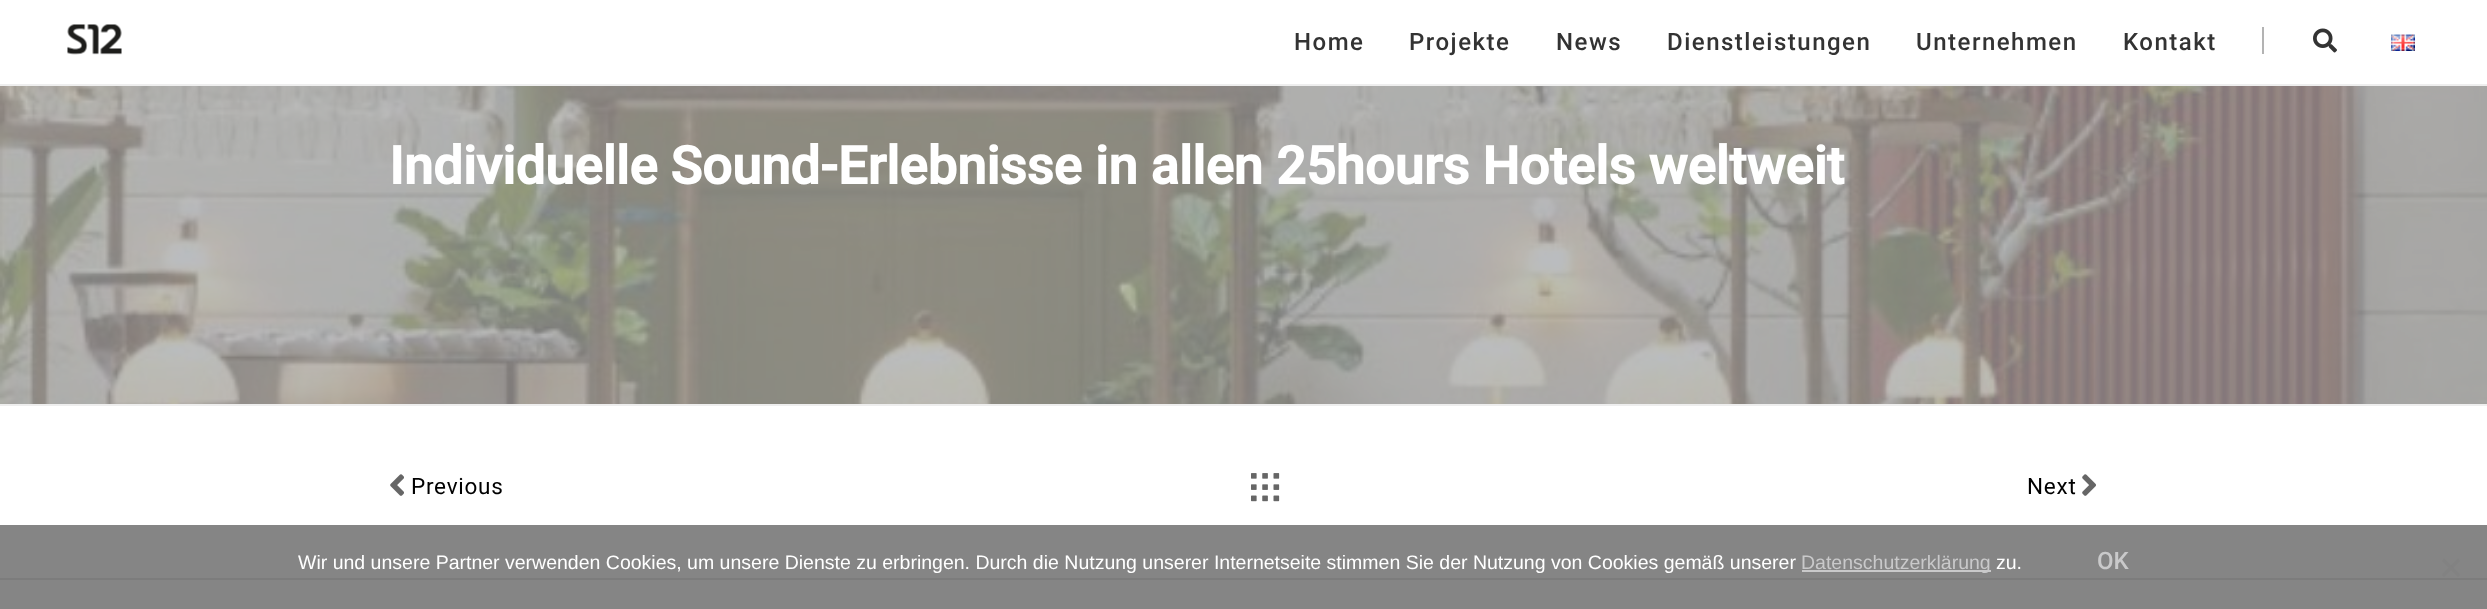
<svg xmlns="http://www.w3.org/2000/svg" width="2487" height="609">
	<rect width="100%" height="100%" fill="#FBFBFB" />
	<rect x="0" y="0" width="2487" height="84" fill="#FFFFFF" />
	<rect x="0" y="84" width="2487" height="2" fill="#EEEEEE" />
	<image x="67" y="24" width="55" height="31" href="assets/img1.png" />
	<g font-family="Roboto" font-size="24" font-weight="500" letter-spacing="1.5" fill="#333333">
		<text x="1294" y="50">Home</text>
		<text x="1409" y="50">Projekte</text>
		<text x="1556" y="50">News</text>
		<text x="1667" y="50">Dienstleistungen</text>
		<text x="1916" y="50">Unternehmen</text>
		<text x="2123" y="50">Kontakt</text>
	</g>
	<rect x="2262" y="27" width="2" height="27" fill="#B3B3B3" />
	<image x="2313" y="28" width="24" height="25" href="assets/img2.png" />
	<image x="2391" y="34" width="24" height="17" href="assets/img3.png" />
	<image x="0" y="86" width="2487" height="318" href="assets/img4.png" />
	<rect x="0" y="86" width="2487" height="318" fill="#7A7B81" fill-opacity="0.5" />
	<text x="389" y="184" font-family="Roboto" font-size="52.5" font-weight="700" fill="#FFFFFF">Individuelle Sound-Erlebnisse in allen 25hours Hotels weltweit</text>
	<rect x="0" y="406" width="2487" height="203" fill="#FFFFFF" />
	<rect x="0" y="404" width="2487" height="2" fill="#EEEEEE" />
	<rect x="0" y="578" width="2487" height="2" fill="#EEEEEE" />
	<image x="390" y="474" width="14" height="22" href="assets/img5.png" />
	<text x="411" y="494" font-family="Roboto" font-size="22.5" letter-spacing="0.75" fill="#000000">Previous</text>
	<image x="1251" y="473" width="29" height="29" href="assets/img6.png" />
	<text x="2027" y="494" font-family="Roboto" font-size="22.5" letter-spacing="0.75" fill="#000000">Next</text>
	<image x="2082" y="474" width="14" height="22" href="assets/img7.png" />
	<rect x="0" y="525" width="2487" height="84" fill="#000000" fill-opacity="0.48" />
	<text x="298" y="569" font-family="Liberation Sans" font-size="19.5" fill="#FFFFFF">Wir und unsere Partner verwenden Cookies, um unsere Dienste zu erbringen. Durch die Nutzung unserer Internetseite stimmen Sie der Nutzung von Cookies gemäß unserer</text>
	<rect x="1802" y="570" width="189" height="2" fill="#C9C9CA" />
	<text x="1801" y="569" font-family="Liberation Sans" font-size="19.5" fill="#C9C9CA">Datenschutzerklärung</text>
	<text x="1996" y="569" font-family="Liberation Sans" font-size="19.5" fill="#FFFFFF">zu.</text>
	<text x="2097" y="569" font-family="Roboto" font-size="24" font-weight="500" fill="#C9C9CA">OK</text>
	<path d="M2458 558.5L2460 561L2444 577L2442 574.5Z" fill="#828282" />
	<path d="M2442 561L2444 558.5L2460 574.5L2458 577Z" fill="#828282" />
</svg>
